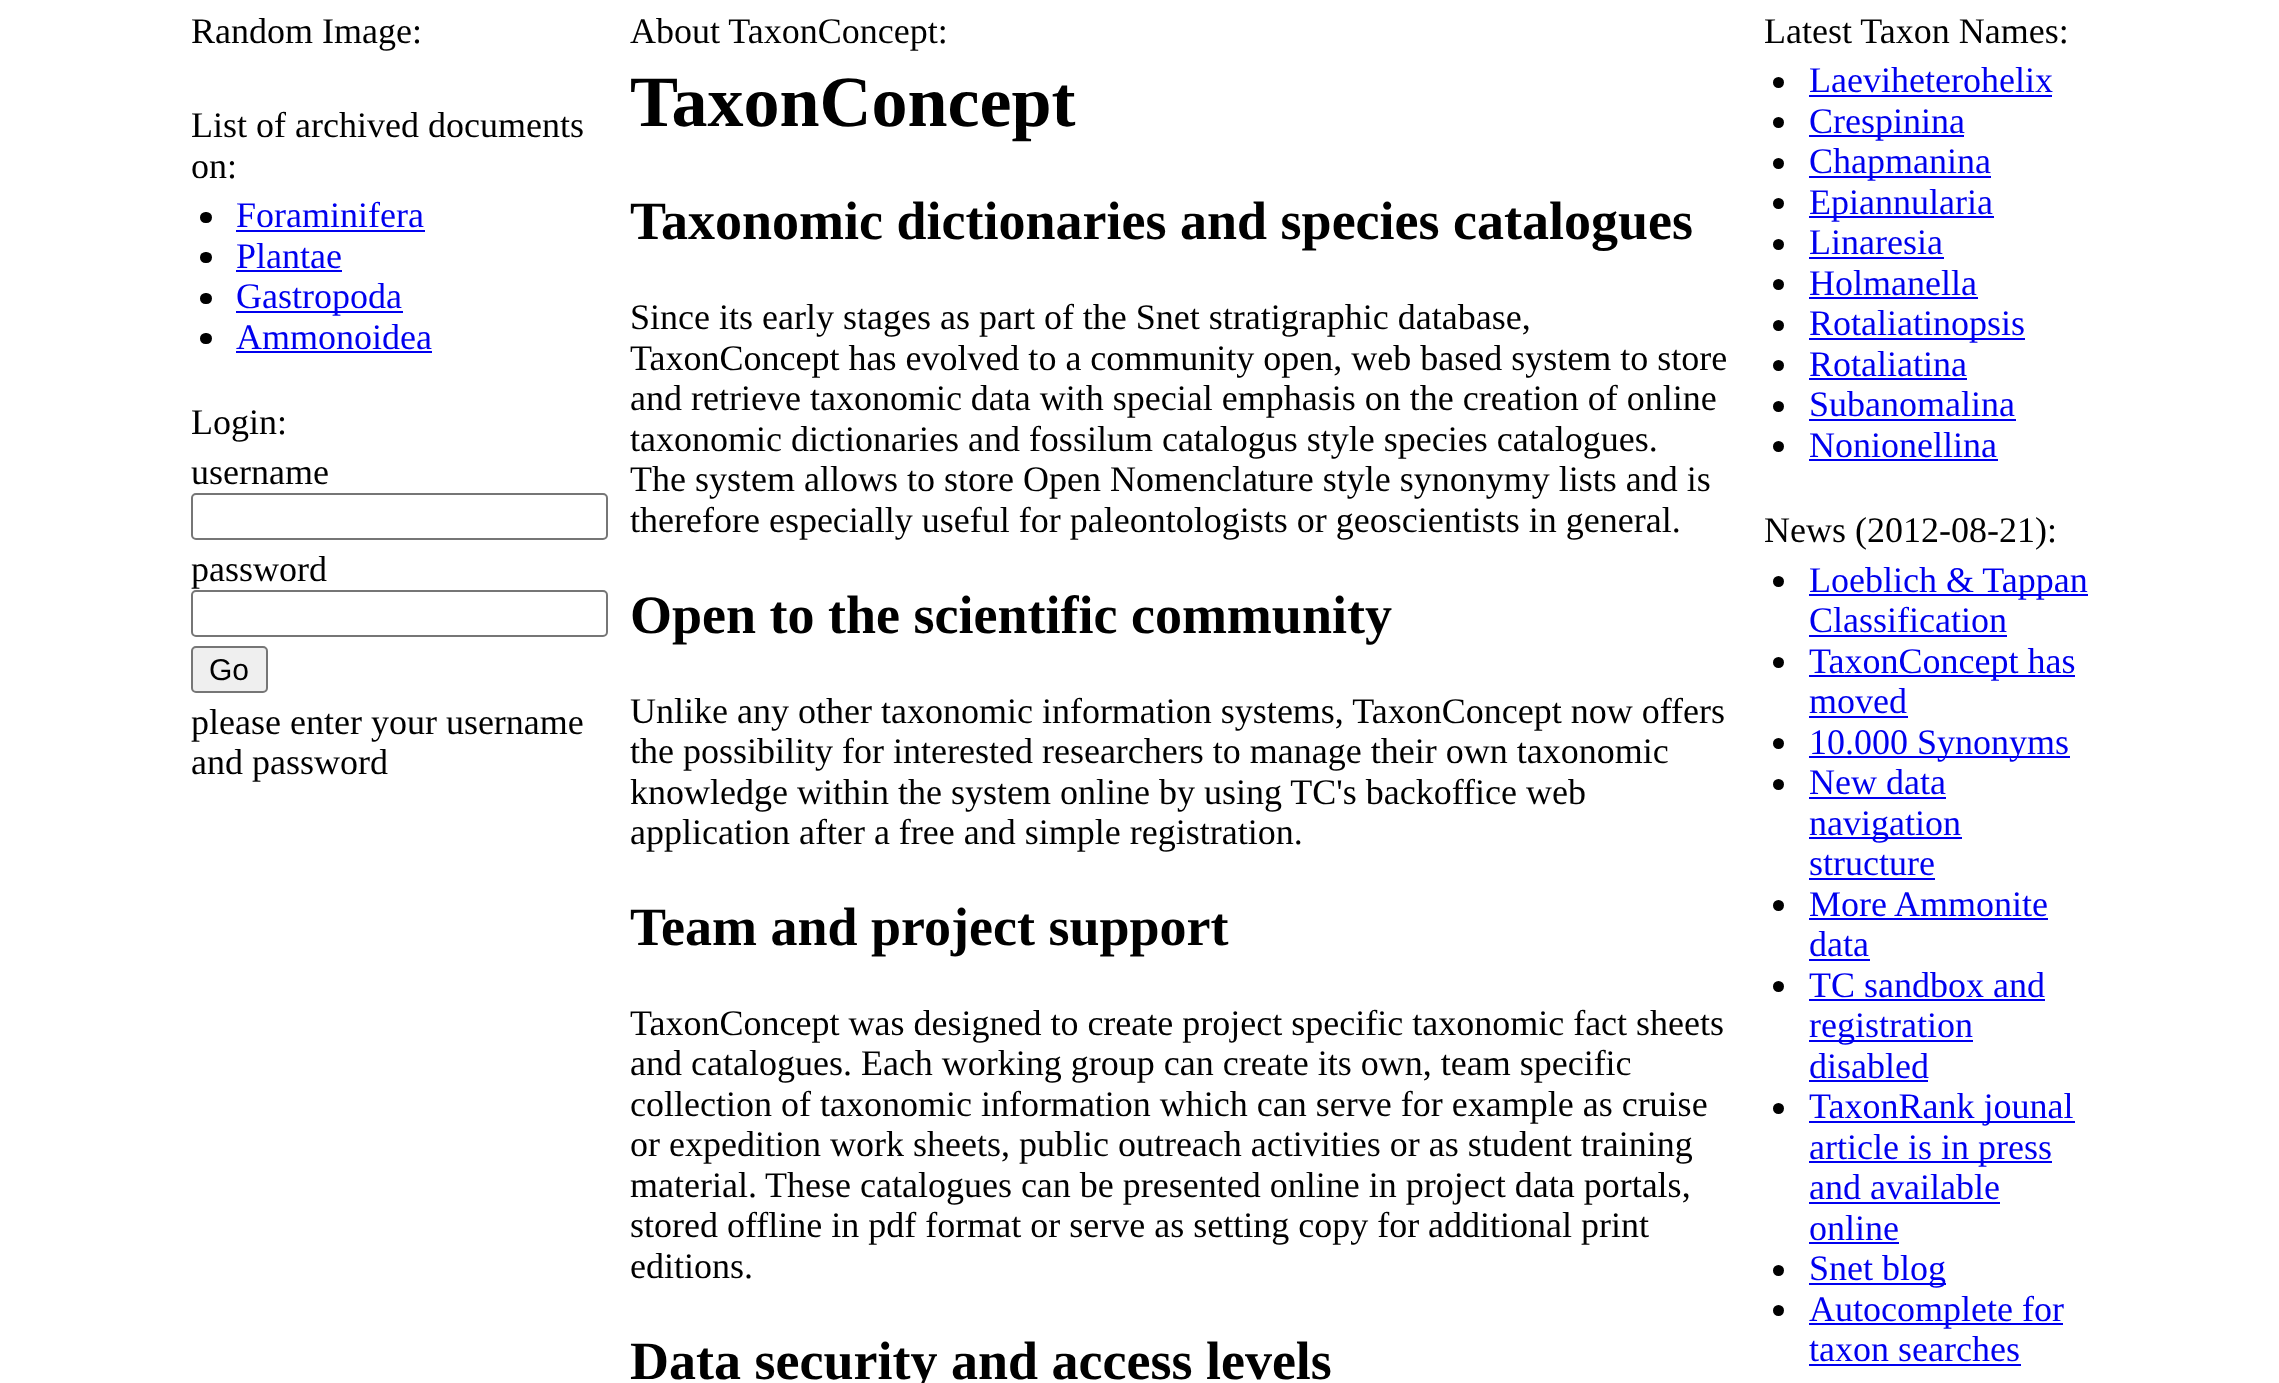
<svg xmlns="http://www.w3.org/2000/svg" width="2279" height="1383">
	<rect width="100%" height="100%" fill="#FFFFFF" />
	<g font-family="Liberation Serif" font-size="36" fill="#000000">
		<text x="191" y="43">Random Image:</text>
		<text x="191" y="137">List of archived documents</text>
		<text x="191" y="178">on:</text>
	</g>
	<rect x="200" y="212" width="12" height="11" rx="5.5" fill="#000000" />
	<text x="236" y="227" font-family="Liberation Serif" font-size="36" fill="#0000EE">Foraminifera</text>
	<rect x="236" y="230" width="189" height="2" fill="#0000EE" />
	<rect x="200" y="252" width="12" height="11" rx="5.5" fill="#000000" />
	<text x="236" y="268" font-family="Liberation Serif" font-size="36" fill="#0000EE">Plantae</text>
	<rect x="236" y="270" width="106" height="2" fill="#0000EE" />
	<rect x="200" y="293" width="12" height="11" rx="5.5" fill="#000000" />
	<rect x="236" y="311" width="167" height="2" fill="#0000EE" />
	<text x="236" y="308" font-family="Liberation Serif" font-size="36" fill="#0000EE">Gastropoda</text>
	<rect x="200" y="333" width="12" height="11" rx="5.5" fill="#000000" />
	<text x="236" y="349" font-family="Liberation Serif" font-size="36" fill="#0000EE">Ammonoidea</text>
	<rect x="236" y="351" width="196" height="2" fill="#0000EE" />
	<g font-family="Liberation Serif" font-size="36" fill="#000000">
		<text x="191" y="434">Login:</text>
		<text x="191" y="484">username</text>
	</g>
	<rect x="192" y="494" width="415" height="45" rx="4" fill="none" stroke="#767676" stroke-width="2" />
	<text x="191" y="581" font-family="Liberation Serif" font-size="36" fill="#000000">password</text>
	<rect x="192" y="591" width="415" height="45" rx="4" fill="none" stroke="#767676" stroke-width="2" />
	<rect x="192" y="647" width="75" height="45" rx="4" fill="#EFEFEF" stroke="#767676" stroke-width="2" />
	<text x="209" y="680" font-family="Liberation Sans" font-size="30" fill="#000000">Go</text>
	<g font-family="Liberation Serif" font-size="36" fill="#000000">
		<text x="191" y="734">please enter your username</text>
		<text x="191" y="774">and password</text>
		<text x="630" y="43">About TaxonConcept:</text>
	</g>
	<text x="630" y="126" font-family="Liberation Serif" font-size="72" font-weight="700" fill="#000000">TaxonConcept</text>
	<text x="630" y="239" font-family="Liberation Serif" font-size="54" font-weight="700" fill="#000000">Taxonomic dictionaries and species catalogues</text>
	<g font-family="Liberation Serif" font-size="36" fill="#000000">
		<text x="630" y="329">Since its early stages as part of the Snet stratigraphic database,</text>
		<text x="630" y="370">TaxonConcept has evolved to a community open, web based system to store</text>
		<text x="630" y="410">and retrieve taxonomic data with special emphasis on the creation of online</text>
		<text x="630" y="451">taxonomic dictionaries and fossilum catalogus style species catalogues.</text>
		<text x="630" y="491">The system allows to store Open Nomenclature style synonymy lists and is</text>
		<text x="630" y="532">therefore especially useful for paleontologists or geoscientists in general.</text>
	</g>
	<text x="630" y="633" font-family="Liberation Serif" font-size="54" font-weight="700" fill="#000000">Open to the scientific community</text>
	<g font-family="Liberation Serif" font-size="36" fill="#000000">
		<text x="630" y="723">Unlike any other taxonomic information systems, TaxonConcept now offers</text>
		<text x="630" y="763">the possibility for interested researchers to manage their own taxonomic</text>
		<text x="630" y="804">knowledge within the system online by using TC's backoffice web</text>
		<text x="630" y="844">application after a free and simple registration.</text>
	</g>
	<text x="630" y="945" font-family="Liberation Serif" font-size="54" font-weight="700" fill="#000000">Team and project support</text>
	<g font-family="Liberation Serif" font-size="36" fill="#000000">
		<text x="630" y="1035">TaxonConcept was designed to create project specific taxonomic fact sheets</text>
		<text x="630" y="1075">and catalogues. Each working group can create its own, team specific</text>
		<text x="630" y="1116">collection of taxonomic information which can serve for example as cruise</text>
		<text x="630" y="1156">or expedition work sheets, public outreach activities or as student training</text>
		<text x="630" y="1197">material.</text>
		<text x="765" y="1197">These catalogues can be presented online in project data portals,</text>
		<text x="630" y="1237">stored offline in pdf format or serve as setting copy for additional print</text>
		<text x="630" y="1278">editions.</text>
	</g>
	<text x="630" y="1379" font-family="Liberation Serif" font-size="54" font-weight="700" fill="#000000">Data security and access levels</text>
	<text x="1764" y="43" font-family="Liberation Serif" font-size="36" fill="#000000">Latest Taxon Names:</text>
	<circle cx="1778.5" cy="82.5" r="5.5" fill="#000000" />
	<text x="1809" y="92" font-family="Liberation Serif" font-size="36" fill="#0000EE">Laeviheterohelix</text>
	<rect x="1809" y="95" width="243" height="2" fill="#0000EE" />
	<circle cx="1778.5" cy="122.5" r="5.5" fill="#000000" />
	<rect x="1809" y="135" width="155" height="2" fill="#0000EE" />
	<text x="1809" y="133" font-family="Liberation Serif" font-size="36" fill="#0000EE">Crespinina</text>
	<circle cx="1778.5" cy="163.5" r="5.5" fill="#000000" />
	<rect x="1809" y="176" width="182" height="2" fill="#0000EE" />
	<text x="1809" y="173" font-family="Liberation Serif" font-size="36" fill="#0000EE">Chapmanina</text>
	<circle cx="1778.5" cy="203.5" r="5.5" fill="#000000" />
	<rect x="1809" y="216" width="185" height="2" fill="#0000EE" />
	<text x="1809" y="214" font-family="Liberation Serif" font-size="36" fill="#0000EE">Epiannularia</text>
	<circle cx="1778.5" cy="244.5" r="5.5" fill="#000000" />
	<text x="1809" y="254" font-family="Liberation Serif" font-size="36" fill="#0000EE">Linaresia</text>
	<rect x="1809" y="257" width="135" height="2" fill="#0000EE" />
	<circle cx="1778.5" cy="284.5" r="5.5" fill="#000000" />
	<text x="1809" y="295" font-family="Liberation Serif" font-size="36" fill="#0000EE">Holmanella</text>
	<rect x="1809" y="297" width="169" height="2" fill="#0000EE" />
	<circle cx="1778.5" cy="325.5" r="5.5" fill="#000000" />
	<rect x="1809" y="338" width="216" height="2" fill="#0000EE" />
	<text x="1809" y="335" font-family="Liberation Serif" font-size="36" fill="#0000EE">Rotaliatinopsis</text>
	<circle cx="1778.5" cy="365.5" r="5.5" fill="#000000" />
	<text x="1809" y="376" font-family="Liberation Serif" font-size="36" fill="#0000EE">Rotaliatina</text>
	<rect x="1809" y="378" width="158" height="2" fill="#0000EE" />
	<circle cx="1778.5" cy="406.5" r="5.5" fill="#000000" />
	<text x="1809" y="416" font-family="Liberation Serif" font-size="36" fill="#0000EE">Subanomalina</text>
	<rect x="1809" y="419" width="207" height="2" fill="#0000EE" />
	<circle cx="1778.5" cy="446.5" r="5.5" fill="#000000" />
	<text x="1809" y="457" font-family="Liberation Serif" font-size="36" fill="#0000EE">Nonionellina</text>
	<rect x="1809" y="459" width="189" height="2" fill="#0000EE" />
	<text x="1764" y="542" font-family="Liberation Serif" font-size="36" fill="#000000">News (2012-08-21):</text>
	<circle cx="1778.5" cy="581.5" r="5.5" fill="#000000" />
	<rect x="1809" y="594" width="279" height="2" fill="#0000EE" />
	<g font-family="Liberation Serif" font-size="36" fill="#0000EE">
		<text x="1809" y="592">Loeblich &amp; Tappan</text>
		<text x="1809" y="632">Classification</text>
	</g>
	<rect x="1809" y="635" width="198" height="2" fill="#0000EE" />
	<circle cx="1778.5" cy="662.5" r="5.5" fill="#000000" />
	<rect x="1809" y="675" width="266" height="2" fill="#0000EE" />
	<g font-family="Liberation Serif" font-size="36" fill="#0000EE">
		<text x="1809" y="673">TaxonConcept has</text>
		<text x="1809" y="713">moved</text>
	</g>
	<rect x="1809" y="716" width="99" height="2" fill="#0000EE" />
	<circle cx="1778.5" cy="743.5" r="5.5" fill="#000000" />
	<rect x="1809" y="756" width="261" height="2" fill="#0000EE" />
	<text x="1809" y="754" font-family="Liberation Serif" font-size="36" fill="#0000EE">10.000 Synonyms</text>
	<circle cx="1778.5" cy="784.5" r="5.5" fill="#000000" />
	<text x="1809" y="794" font-family="Liberation Serif" font-size="36" fill="#0000EE">New data</text>
	<rect x="1809" y="797" width="137" height="2" fill="#0000EE" />
	<rect x="1809" y="837" width="153" height="2" fill="#0000EE" />
	<g font-family="Liberation Serif" font-size="36" fill="#0000EE">
		<text x="1809" y="835">navigation</text>
		<text x="1809" y="875">structure</text>
	</g>
	<rect x="1809" y="878" width="126" height="2" fill="#0000EE" />
	<circle cx="1778.5" cy="905.5" r="5.5" fill="#000000" />
	<text x="1809" y="916" font-family="Liberation Serif" font-size="36" fill="#0000EE">More Ammonite</text>
	<rect x="1809" y="918" width="239" height="2" fill="#0000EE" />
	<text x="1809" y="956" font-family="Liberation Serif" font-size="36" fill="#0000EE">data</text>
	<rect x="1809" y="959" width="61" height="2" fill="#0000EE" />
	<circle cx="1778.5" cy="986.5" r="5.5" fill="#000000" />
	<text x="1809" y="997" font-family="Liberation Serif" font-size="36" fill="#0000EE">TC sandbox and</text>
	<rect x="1809" y="999" width="236" height="2" fill="#0000EE" />
	<rect x="1809" y="1040" width="164" height="2" fill="#0000EE" />
	<g font-family="Liberation Serif" font-size="36" fill="#0000EE">
		<text x="1809" y="1037">registration</text>
		<text x="1809" y="1078">disabled</text>
	</g>
	<rect x="1809" y="1080" width="119" height="2" fill="#0000EE" />
	<circle cx="1778.5" cy="1108.5" r="5.5" fill="#000000" />
	<rect x="1809" y="1121" width="266" height="2" fill="#0000EE" />
	<text x="1809" y="1118" font-family="Liberation Serif" font-size="36" fill="#0000EE">TaxonRank jounal</text>
	<rect x="1809" y="1161" width="243" height="2" fill="#0000EE" />
	<g font-family="Liberation Serif" font-size="36" fill="#0000EE">
		<text x="1809" y="1159">article is in press</text>
		<text x="1809" y="1199">and available</text>
	</g>
	<rect x="1809" y="1202" width="191" height="2" fill="#0000EE" />
	<text x="1809" y="1240" font-family="Liberation Serif" font-size="36" fill="#0000EE">online</text>
	<rect x="1809" y="1242" width="90" height="2" fill="#0000EE" />
	<circle cx="1778.5" cy="1270.5" r="5.5" fill="#000000" />
	<rect x="1809" y="1283" width="137" height="2" fill="#0000EE" />
	<text x="1809" y="1280" font-family="Liberation Serif" font-size="36" fill="#0000EE">Snet blog</text>
	<circle cx="1778.5" cy="1310.5" r="5.5" fill="#000000" />
	<rect x="1809" y="1323" width="254" height="2" fill="#0000EE" />
	<g font-family="Liberation Serif" font-size="36" fill="#0000EE">
		<text x="1809" y="1321">Autocomplete for</text>
		<text x="1809" y="1361">taxon searches</text>
	</g>
	<rect x="1809" y="1364" width="212" height="2" fill="#0000EE" />
</svg>
